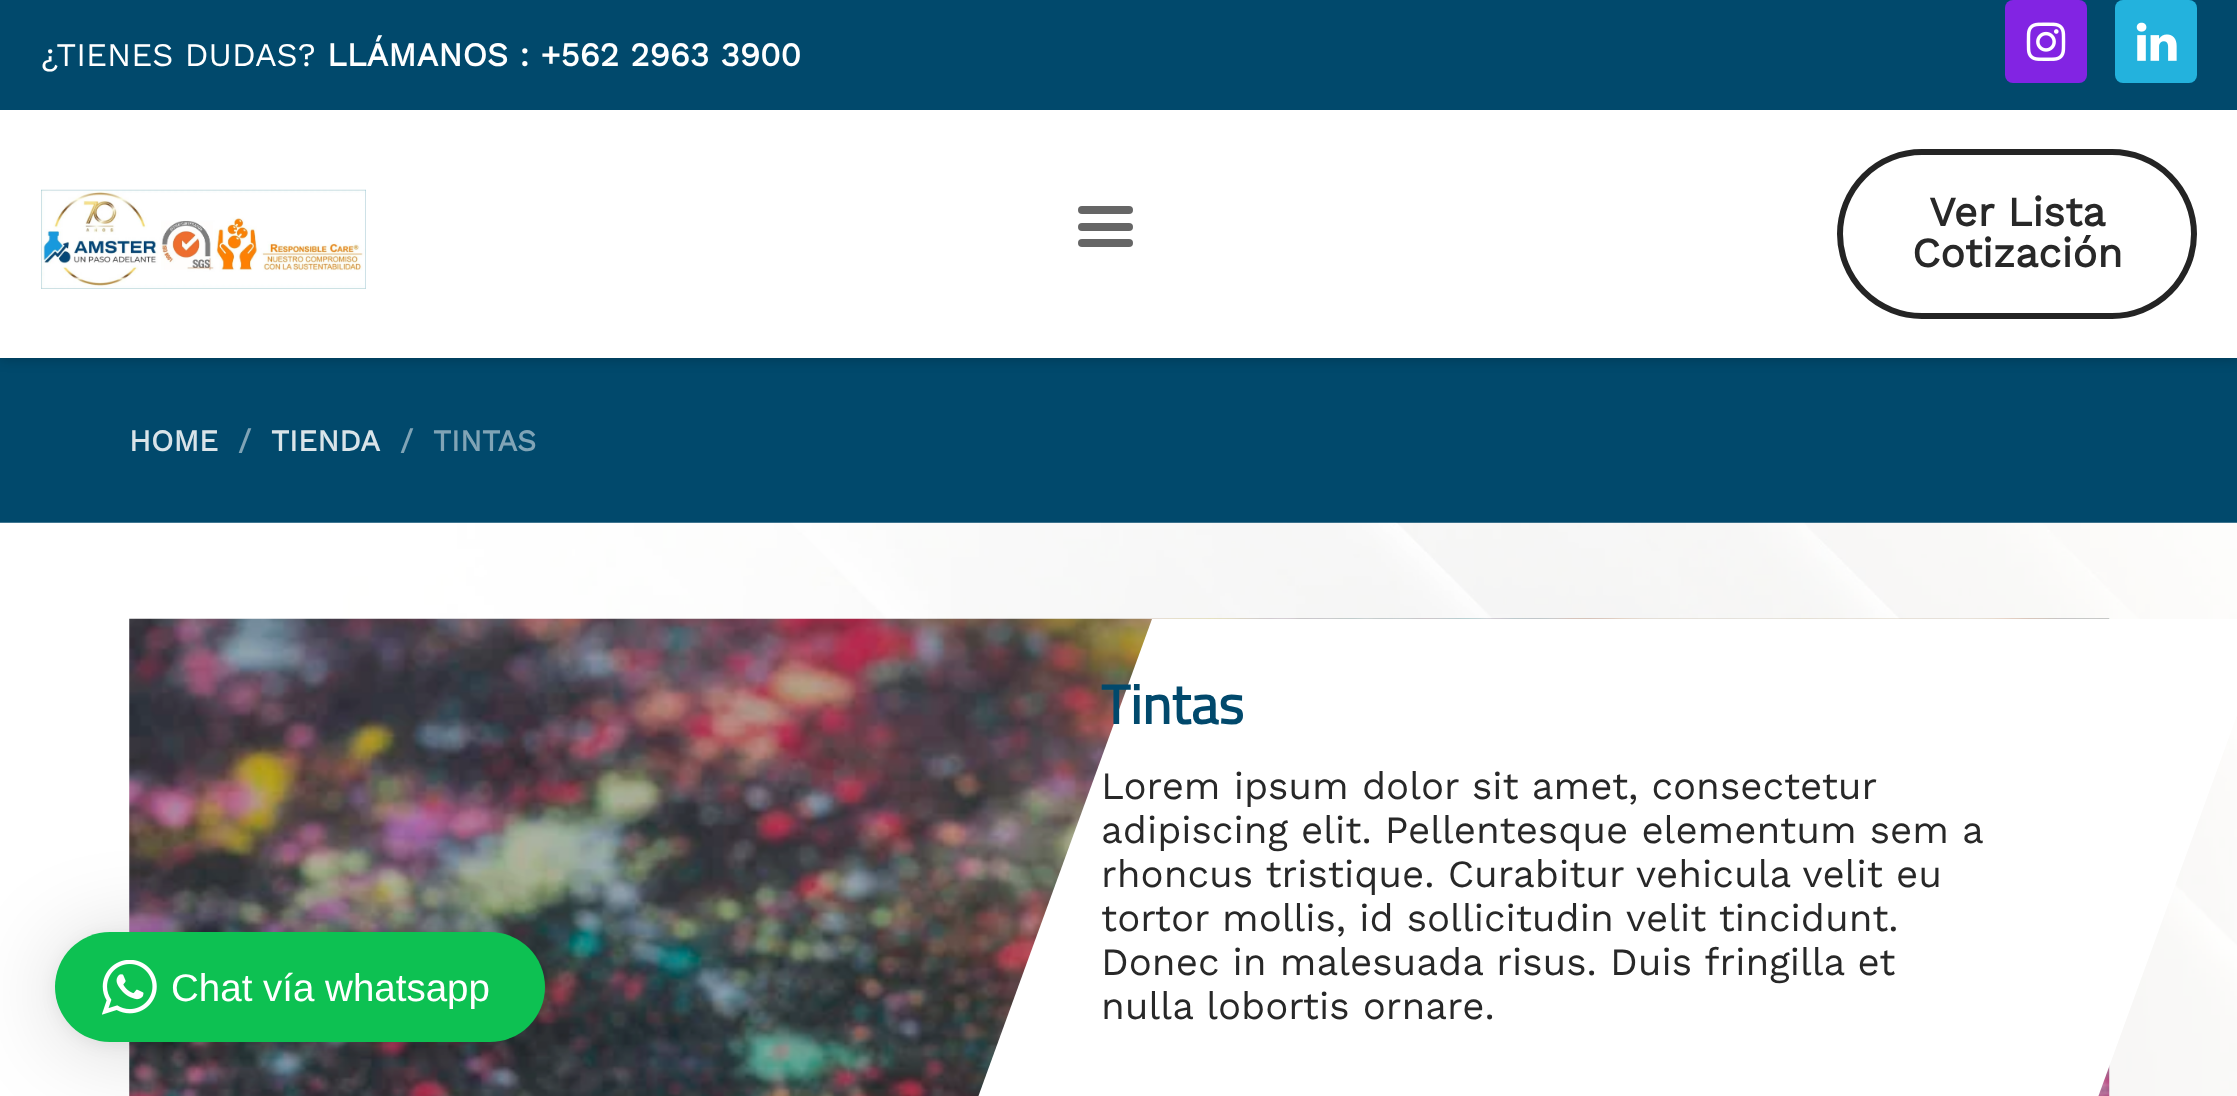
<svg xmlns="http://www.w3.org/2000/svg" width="2237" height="1096">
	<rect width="100%" height="100%" fill="#01496C" />
	<rect x="0" y="0" width="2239" height="358" fill="#000000" fill-opacity="0.25" filter="blur(7px)" />
	<rect x="0" y="110" width="2237" height="248" fill="#FFFFFF" />
	<rect x="0" y="0" width="2237" height="110" fill="#01496C" />
	<text x="41" y="66" font-family="Work Sans" font-size="33" fill="#FFFFFF">¿TIENES DUDAS?</text>
	<text x="327" y="66" font-family="Work Sans" font-size="33" font-weight="700" fill="#FFFFFF">LLÁMANOS : +562 2963 3900</text>
	<rect x="2005" y="0" width="82" height="83" rx="8" fill="#8224E3" />
	<image x="2026" y="22" width="40" height="39" href="assets/img1.png" />
	<rect x="2115" y="0" width="82" height="83" rx="8" fill="#23B2DD" />
	<image x="2136" y="22" width="41" height="39" href="assets/img2.png" />
	<image x="41" y="189" width="325" height="100" href="assets/img3.png" />
	<rect x="1078" y="206" width="55" height="8" rx="4" fill="#666666" />
	<rect x="1078" y="223" width="55" height="8" rx="4" fill="#666666" />
	<rect x="1078" y="239" width="55" height="8" rx="4" fill="#666666" />
	<rect x="1840" y="152" width="354" height="164" rx="82" fill="none" stroke="#242424" stroke-width="6" />
	<g font-family="Work Sans" font-size="41.25" font-weight="700" fill="#282828">
		<text x="1929" y="226">Ver Lista</text>
		<text x="1912" y="267">Cotización</text>
	</g>
	<text x="129" y="451" font-family="Work Sans" font-size="30" font-weight="700" fill="#D9E4E9">HOME</text>
	<text x="238" y="451" font-family="Work Sans" font-size="30" font-weight="700" fill="#80A4B6">/</text>
	<text x="271" y="451" font-family="Work Sans" font-size="30" font-weight="700" fill="#D9E4E9">TIENDA</text>
	<g font-family="Work Sans" font-size="30" font-weight="700" fill="#80A4B6">
		<text x="400" y="451">/</text>
		<text x="433" y="451">TINTAS</text>
	</g>
	<image x="0" y="522" width="2237" height="574" href="assets/img4.png" />
	<image x="129" y="618" width="1981" height="478" href="assets/img5.png" />
	<path d="M1152 619H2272L1946 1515H826Z" fill="#FFFFFF" />
	<text x="1101" y="724" font-family="Titillium Web" font-size="55" font-weight="700" fill="#01496C">Tintas</text>
	<g font-family="Work Sans" font-size="38.5" fill="#282828">
		<text x="1101" y="799">Lorem ipsum dolor sit amet, consectetur</text>
		<text x="1101" y="843">adipiscing elit. Pellentesque elementum sem a</text>
		<text x="1101" y="887">rhoncus tristique. Curabitur vehicula velit eu</text>
		<text x="1101" y="931">tortor mollis, id sollicitudin velit tincidunt.</text>
		<text x="1101" y="975">Donec in malesuada risus. Duis fringilla et</text>
		<text x="1101" y="1019">nulla lobortis ornare.</text>
	</g>
	<rect x="55" y="938" width="490" height="110" rx="55" fill="#000000" fill-opacity="0.16" filter="blur(44px)" />
	<rect x="55" y="935" width="490" height="110" rx="55" fill="#000000" fill-opacity="0.06" filter="blur(8px)" />
	<rect x="55" y="932" width="490" height="110" rx="55" fill="#0DC152" />
	<image x="102" y="960" width="55" height="55" href="assets/img6.png" />
	<text x="171" y="1001" font-family="Liberation Sans" font-size="38.5" fill="#FFFFFF">Chat vía whatsapp</text>
</svg>
